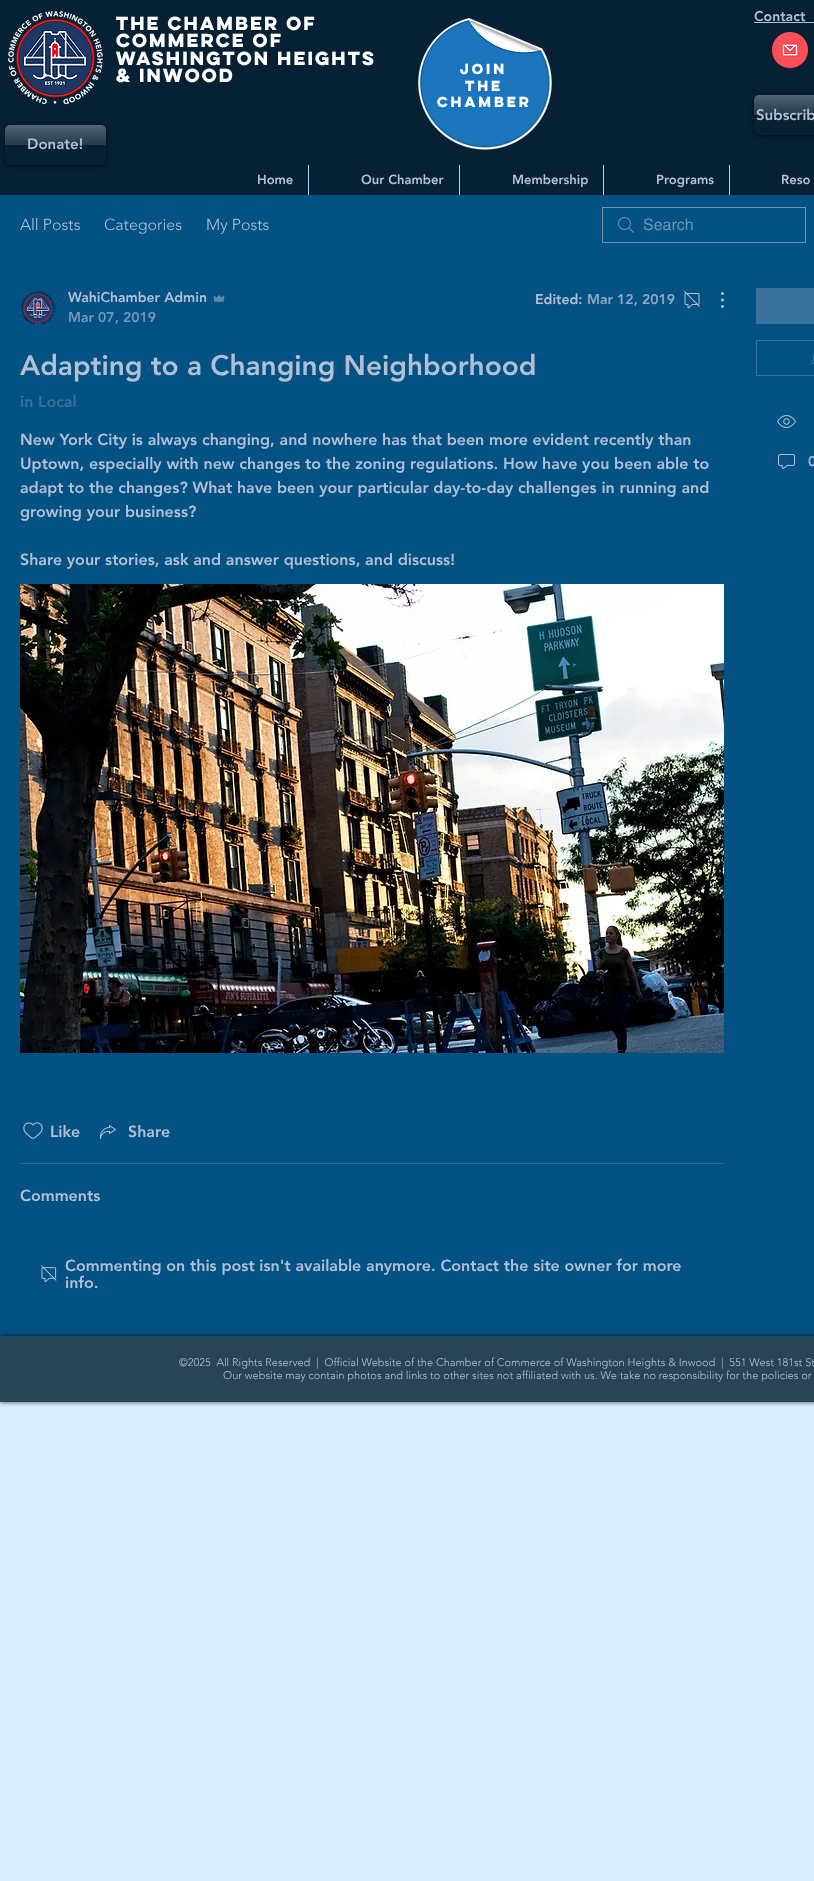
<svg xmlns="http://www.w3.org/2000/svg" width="814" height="1881">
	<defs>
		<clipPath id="clip1"><path d="M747 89H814V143H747ZM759 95H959C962 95 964 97 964 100V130C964 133 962 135 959 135H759C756 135 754 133 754 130V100C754 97 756 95 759 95Z" clip-rule="evenodd" /></clipPath>
		<clipPath id="clip2"><path d="M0 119H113V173H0ZM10 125H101C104 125 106 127 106 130V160C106 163 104 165 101 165H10C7 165 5 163 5 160V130C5 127 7 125 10 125Z" clip-rule="evenodd" /></clipPath>
	</defs>
	<rect width="100%" height="100%" fill="#DAEDFF" />
	<rect x="0" y="0" width="814" height="195" fill="#062134" />
	<image x="8" y="10" width="95" height="95" href="assets/img1.png" />
	<g font-family="'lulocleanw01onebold'" font-size="17" font-weight="700" letter-spacing="-1.75" fill="#FFFFFF">
		<text x="116" y="30">The Chamber of</text>
		<text x="116" y="47">Commerce of</text>
		<text x="116" y="65">Washington Heights</text>
		<text x="116" y="82">&amp; Inwood</text>
	</g>
	<text x="754" y="21" font-family="'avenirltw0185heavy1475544'" font-size="14" font-weight="900" fill="#B3C0D3">Contact</text>
	<rect x="754" y="22" width="60" height="1" fill="#B3C0D3" />
	<image x="771" y="31" width="38" height="38" href="assets/img2.png" />
	<image x="418" y="18" width="134" height="132" href="assets/img3.png" />
	<g font-family="'lulocleanw01onebold'" font-size="13" font-weight="700" fill="#FFFFFF">
		<text x="460" y="74">JOIN</text>
		<text x="465" y="91">THE</text>
		<text x="437" y="107">CHAMBER</text>
	</g>
	<g clip-path="url(#clip1)">
		<rect x="754" y="96" width="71" height="40" rx="5" fill="#000000" fill-opacity="0.6" filter="blur(2px)" />
	</g>
	<image x="754" y="95" width="60" height="20" href="assets/img4.png" />
	<text x="756" y="120" font-family="'avenirltw0185heavy1475544'" font-size="15" font-weight="900" fill="#B3C0D3">Subscrib</text>
	<g clip-path="url(#clip2)">
		<rect x="5" y="126" width="101" height="40" rx="5" fill="#000000" fill-opacity="0.6" filter="blur(2px)" />
	</g>
	<image x="5" y="125" width="101" height="20" href="assets/img5.png" />
	<text x="27" y="149" font-family="'avenirltw0185heavy1475544'" font-size="15" font-weight="900" fill="#B3C0D3">Donate!</text>
	<text x="257" y="184" font-family="'avenirltw0185heavy1475544'" font-size="13" font-weight="900" fill="#B3C0D3">Home</text>
	<rect x="308" y="165" width="1" height="30" fill="#B0CDF0" />
	<text x="361" y="184" font-family="'avenirltw0185heavy1475544'" font-size="13" font-weight="900" fill="#B3C0D3">Our Chamber</text>
	<rect x="459" y="165" width="1" height="30" fill="#B0CDF0" />
	<text x="512" y="184" font-family="'avenirltw0185heavy1475544'" font-size="13" font-weight="900" fill="#B3C0D3">Membership</text>
	<rect x="603" y="165" width="1" height="30" fill="#B0CDF0" />
	<text x="656" y="184" font-family="'avenirltw0185heavy1475544'" font-size="13" font-weight="900" fill="#B3C0D3">Programs</text>
	<rect x="729" y="165" width="1" height="30" fill="#B0CDF0" />
	<text x="781" y="184" font-family="'avenirltw0185heavy1475544'" font-size="13" font-weight="900" fill="#B3C0D3">Reso</text>
	<rect x="0" y="195" width="814" height="1141" fill="#045184" />
	<g font-family="'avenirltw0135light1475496'" font-size="16" font-weight="300" fill="#B3C0D3">
		<text x="20" y="230">All Posts</text>
		<text x="104" y="230">Categories</text>
		<text x="206" y="230">My Posts</text>
	</g>
	<image x="618" y="217" width="16" height="16" href="assets/img6.png" />
	<rect x="602.5" y="207.5" width="203" height="35" fill="none" stroke="#6D94B3" />
	<text x="643" y="230" font-family="helvetica" font-size="16" fill="#6D94B3">Search</text>
	<image x="20" y="291" width="36" height="34" href="assets/img7.png" />
	<text x="68" y="302" font-family="'avenirltw0185heavy1475544'" font-size="14" font-weight="900" fill="#B3C0D3">WahiChamber Admin</text>
	<image x="213" y="295" width="12" height="7" href="assets/img8.png" />
	<text x="68" y="322" font-family="'avenirltw0185heavy1475544'" font-size="14" font-weight="900" fill="#7498B7">Mar 07, 2019</text>
	<text x="535" y="304" font-family="'avenirltw0185heavy1475544'" font-size="14" font-weight="900" fill="#B3C0D3">Edited:</text>
	<text x="587" y="304" font-family="'avenirltw0185heavy1475544'" font-size="14" font-weight="900" fill="#90AAC3">Mar 12, 2019</text>
	<image x="684" y="291" width="16" height="18" href="assets/img9.png" />
	<image x="721" y="292" width="3" height="16" href="assets/img10.png" />
	<text x="20" y="375" font-family="'avenirltw0185heavy1475544'" font-size="28" font-weight="900" fill="#B3C0D3">Adapting to a Changing Neighborhood</text>
	<text x="20" y="407" font-family="'avenirltw0185heavy1475544'" font-size="16" font-weight="900" fill="#39729B">in Local</text>
	<g font-family="'avenirltw0185heavy1475544'" font-size="16" font-weight="900" fill="#B3C0D3">
		<text x="20" y="445">New York City is always changing, and nowhere has that been more evident recently than</text>
		<text x="20" y="469">Uptown, especially with new changes to the zoning regulations. How have you been able to</text>
		<text x="20" y="493">adapt to the changes? What have been your particular day-to-day challenges in running and</text>
		<text x="20" y="517">growing your business?</text>
		<text x="20" y="565">Share your stories, ask and answer questions, and discuss!</text>
	</g>
	<image x="20" y="584" width="704" height="469" href="assets/img11.png" />
	<image x="23" y="1122" width="20" height="18" href="assets/img12.png" />
	<text x="50" y="1137" font-family="'avenirltw0185heavy1475544'" font-size="16" font-weight="900" fill="#B3C0D3">Like</text>
	<image x="100" y="1125" width="16" height="14" href="assets/img13.png" />
	<text x="128" y="1137" font-family="'avenirltw0185heavy1475544'" font-size="16" font-weight="900" fill="#B3C0D3">Share</text>
	<rect x="20" y="1163" width="704" height="1" fill="#276794" />
	<text x="20" y="1201" font-family="'avenirltw0185heavy1475544'" font-size="16" font-weight="900" fill="#B3C0D3">Comments</text>
	<image x="41" y="1265" width="16" height="18" href="assets/img14.png" />
	<g font-family="'avenirltw0185heavy1475544'" font-size="16" font-weight="900" fill="#B3C0D3">
		<text x="65" y="1271">Commenting on this post isn't available anymore. Contact the site owner for more</text>
		<text x="65" y="1288">info.</text>
	</g>
	<rect x="756" y="288" width="58" height="36" fill="#39729B" />
	<rect x="756.5" y="340.5" width="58" height="35" fill="none" stroke="#39729B" />
	<image x="811" y="353" width="3" height="11" href="assets/img15.png" />
	<image x="777" y="415" width="19" height="13" href="assets/img16.png" />
	<image x="778" y="454" width="17" height="15" href="assets/img17.png" />
	<text x="808" y="466" font-family="'avenirltw0185heavy1475544'" font-size="14" font-weight="900" fill="#B3C0D3">0</text>
	<rect x="0" y="1336" width="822" height="66" fill="#000000" fill-opacity="0.7" filter="blur(2.5px)" />
	<rect x="0" y="1336" width="814" height="66" fill="#2A4457" />
	<g font-family="'avenirltw0135light1475496'" font-size="11" font-weight="300" fill="#B3C0D3">
		<text x="179" y="1366" xml:space="preserve">©2025  All Rights Reserved  |  Official Website of the Chamber of Commerce of Washington Heights &amp; Inwood  |  551 West 181st St</text>
		<text x="223" y="1379">Our website may contain photos and links to other sites not affiliated with us. We take no responsibility for the policies or</text>
	</g>
</svg>
